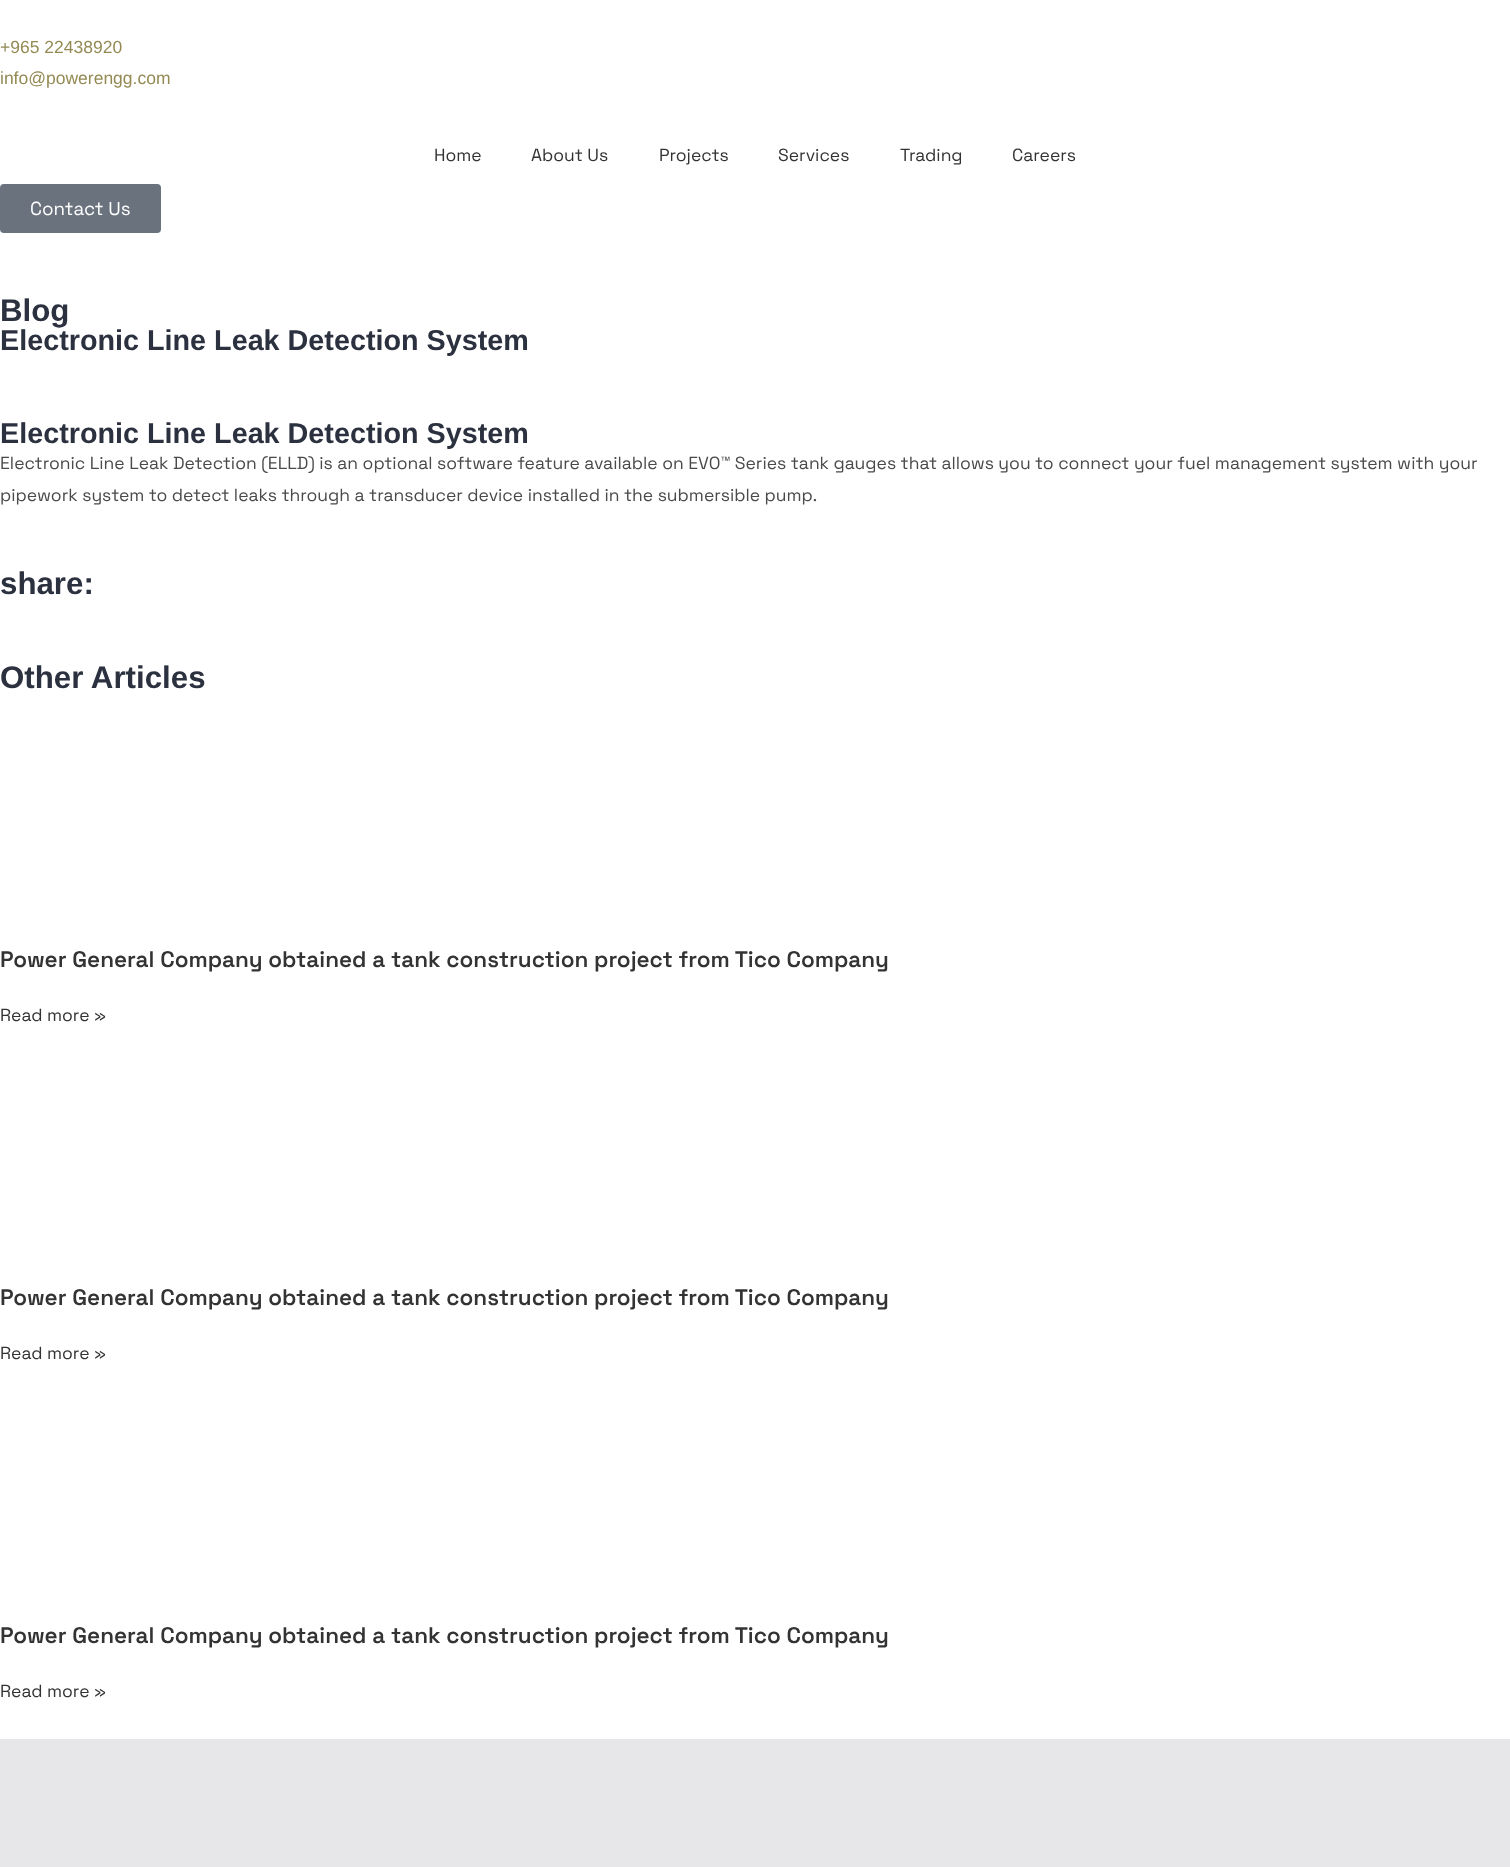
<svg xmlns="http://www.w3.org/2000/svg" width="1510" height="1867">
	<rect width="100%" height="100%" fill="#FFFFFF" />
	<g font-family="Liberation Sans" font-size="17.5" fill="#948A54">
		<text x="0" y="53">+965 22438920</text>
		<text x="0" y="84">info@powerengg.com</text>
	</g>
	<g font-family="Space Grotesk" font-size="17.5" fill="#333333">
		<text x="434" y="161">Home</text>
		<text x="531" y="161">About Us</text>
		<text x="659" y="161">Projects</text>
		<text x="778" y="161">Services</text>
		<text x="900" y="161">Trading</text>
		<text x="1012" y="161">Careers</text>
	</g>
	<rect x="0" y="184" width="161" height="49" rx="4" fill="#69727D" />
	<text x="30" y="215" font-family="Space Grotesk" font-size="18.75" fill="#FFFFFF">Contact Us</text>
	<text x="0" y="321" font-family="Liberation Sans" font-size="31.25" font-weight="700" fill="#2B313F">Blog</text>
	<g font-family="Liberation Sans" font-size="28.75" font-weight="700" fill="#2B313F">
		<text x="0" y="350">Electronic Line Leak Detection System</text>
		<text x="0" y="443">Electronic Line Leak Detection System</text>
	</g>
	<g font-family="Space Grotesk" font-size="17.5" fill="#4A4A4A">
		<text x="0" y="469">Electronic Line Leak Detection (ELLD) is an optional software feature available on EVO™ Series tank gauges that allows you to connect your fuel management system with your</text>
		<text x="0" y="501">pipework system to detect leaks through a transducer device installed in the submersible pump.</text>
	</g>
	<g font-family="Liberation Sans" font-size="31.25" font-weight="700" fill="#2B313F">
		<text x="0" y="594">share:</text>
		<text x="0" y="688">Other Articles</text>
	</g>
	<text x="0" y="967" font-family="Space Grotesk" font-size="22.5" font-weight="600" fill="#333333">Power General Company obtained a tank construction project from Tico Company</text>
	<text x="0" y="1021" font-family="Space Grotesk" font-size="17.5" fill="#333333">Read more »</text>
	<text x="0" y="1305" font-family="Space Grotesk" font-size="22.5" font-weight="600" fill="#333333">Power General Company obtained a tank construction project from Tico Company</text>
	<text x="0" y="1359" font-family="Space Grotesk" font-size="17.5" fill="#333333">Read more »</text>
	<text x="0" y="1643" font-family="Space Grotesk" font-size="22.5" font-weight="600" fill="#333333">Power General Company obtained a tank construction project from Tico Company</text>
	<text x="0" y="1697" font-family="Space Grotesk" font-size="17.5" fill="#333333">Read more »</text>
	<rect x="0" y="1739" width="1510" height="128" fill="#E7E7E9" />
</svg>
